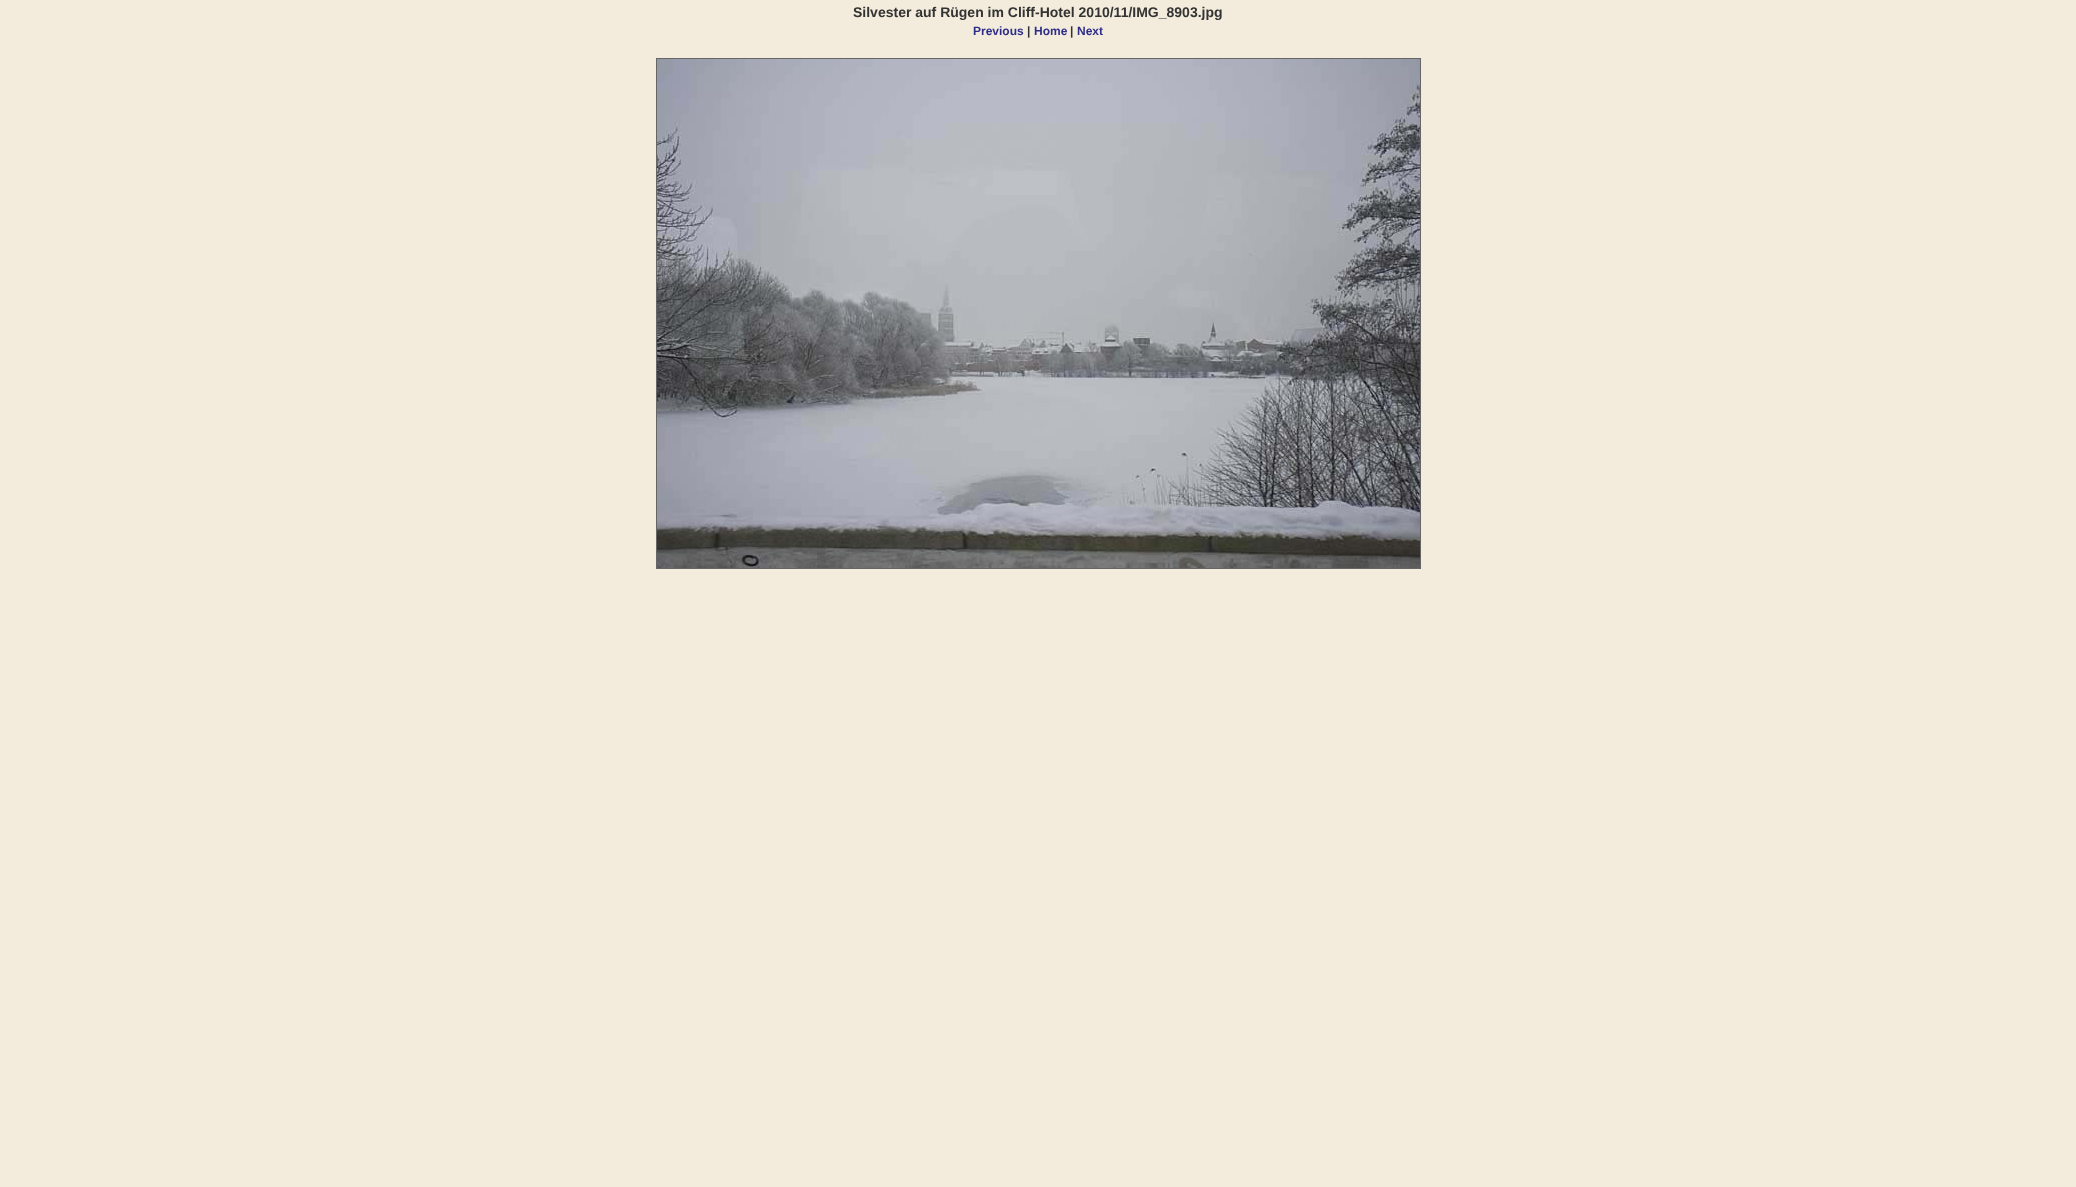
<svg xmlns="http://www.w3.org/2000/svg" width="2076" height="1187">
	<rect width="100%" height="100%" fill="#F3ECDD" />
	<text x="853" y="17" font-family="Liberation Sans" font-size="14" font-weight="700" fill="#333333">Silvester auf Rügen im Cliff-Hotel 2010/11/IMG_8903.jpg</text>
	<text x="973" y="35" font-family="Liberation Sans" font-size="12" font-weight="700" fill="#2E2E8A">Previous</text>
	<text x="1027" y="35" font-family="Liberation Sans" font-size="12" font-weight="700" fill="#333333">|</text>
	<text x="1034" y="35" font-family="Liberation Sans" font-size="12" font-weight="700" fill="#2E2E8A">Home</text>
	<text x="1070" y="35" font-family="Liberation Sans" font-size="12" font-weight="700" fill="#333333">|</text>
	<text x="1077" y="35" font-family="Liberation Sans" font-size="12" font-weight="700" fill="#2E2E8A">Next</text>
	<rect x="656.5" y="58.5" width="764" height="510" fill="none" stroke="#666666" />
	<image x="657" y="59" width="763" height="509" href="assets/img1.png" />
</svg>
